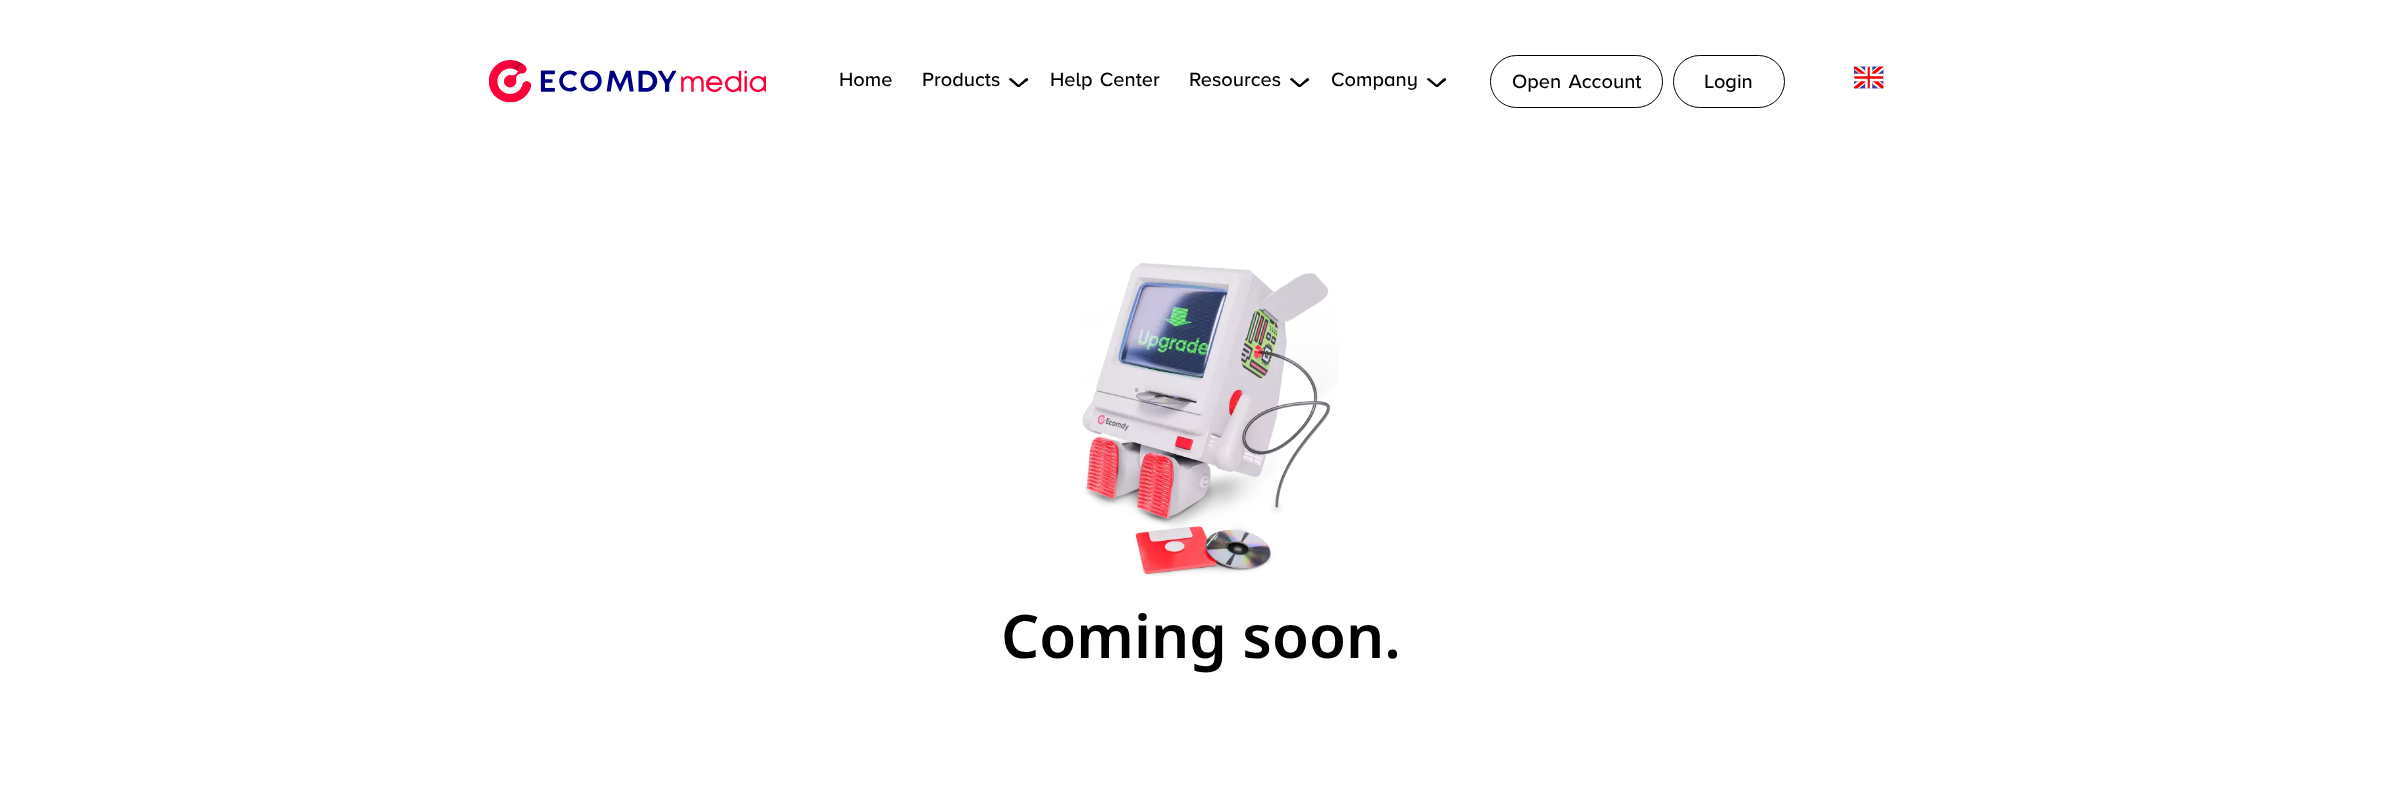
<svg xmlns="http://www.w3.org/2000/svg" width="2402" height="790">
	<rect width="100%" height="100%" fill="#FFFFFF" />
	<image x="489" y="60" width="277" height="43" href="assets/img1.png" />
	<g font-family="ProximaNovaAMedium" font-size="20" font-weight="500" fill="#000000">
		<text x="839" y="86">Home</text>
		<text x="922" y="86">Products</text>
	</g>
	<path d="M1011 78L1019 85C1019.5 86 1019 87.5 1017.5 87L1009 79.5C1008.5 79 1010 77.5 1011 78Z" fill="#000000" />
	<path d="M1018.5 85L1025 79C1026.5 78 1027 77.5 1028 79C1029 80 1026 82 1025.5 82L1019.5 87C1018.5 87.5 1017 85.5 1018.5 85Z" fill="#000000" />
	<g font-family="ProximaNovaAMedium" font-size="20" font-weight="500" fill="#000000">
		<text x="1050" y="86" word-spacing="2">Help Center</text>
		<text x="1189" y="86">Resources</text>
	</g>
	<path d="M1292 78L1300 85C1301 86 1300 87.5 1298.5 87L1290 79.5C1289.5 79 1291 77.5 1292 78Z" fill="#000000" />
	<path d="M1299.5 85L1306 79C1307.5 78 1308 77.5 1309 79C1310 80 1307 82 1306.5 82L1300.5 87C1299.5 87.5 1298 85.5 1299.5 85Z" fill="#000000" />
	<text x="1331" y="86" font-family="ProximaNovaAMedium" font-size="20" font-weight="500" fill="#000000">Company</text>
	<path d="M1429 78L1437 85C1438 86 1437 87.5 1436 87L1427 79.5C1426.5 79 1428 77.5 1429 78Z" fill="#000000" />
	<path d="M1436.5 85L1443 79C1445 78 1445 77.5 1446 79C1447 80 1444 82 1443.5 82L1438 87C1436.5 87.5 1435.5 85.5 1436.5 85Z" fill="#000000" />
	<rect x="1490.5" y="55.5" width="172" height="52" rx="26" fill="none" stroke="#000000" />
	<text x="1512" y="88" word-spacing="2" font-family="ProximaNovaAMedium" font-size="20" font-weight="500" fill="#000000">Open Account</text>
	<rect x="1673.5" y="55.5" width="111" height="52" rx="26" fill="none" stroke="#000000" />
	<text x="1704" y="88" font-family="ProximaNovaAMedium" font-size="20" font-weight="500" fill="#000000">Login</text>
	<image x="1854" y="66" width="30" height="23" href="assets/img2.png" />
	<image x="1082" y="263" width="256" height="313" href="assets/img3.png" />
	<text x="1001" y="658" font-family="Noto Sans" font-size="60" font-weight="600" fill="#000000">Coming soon.</text>
</svg>
